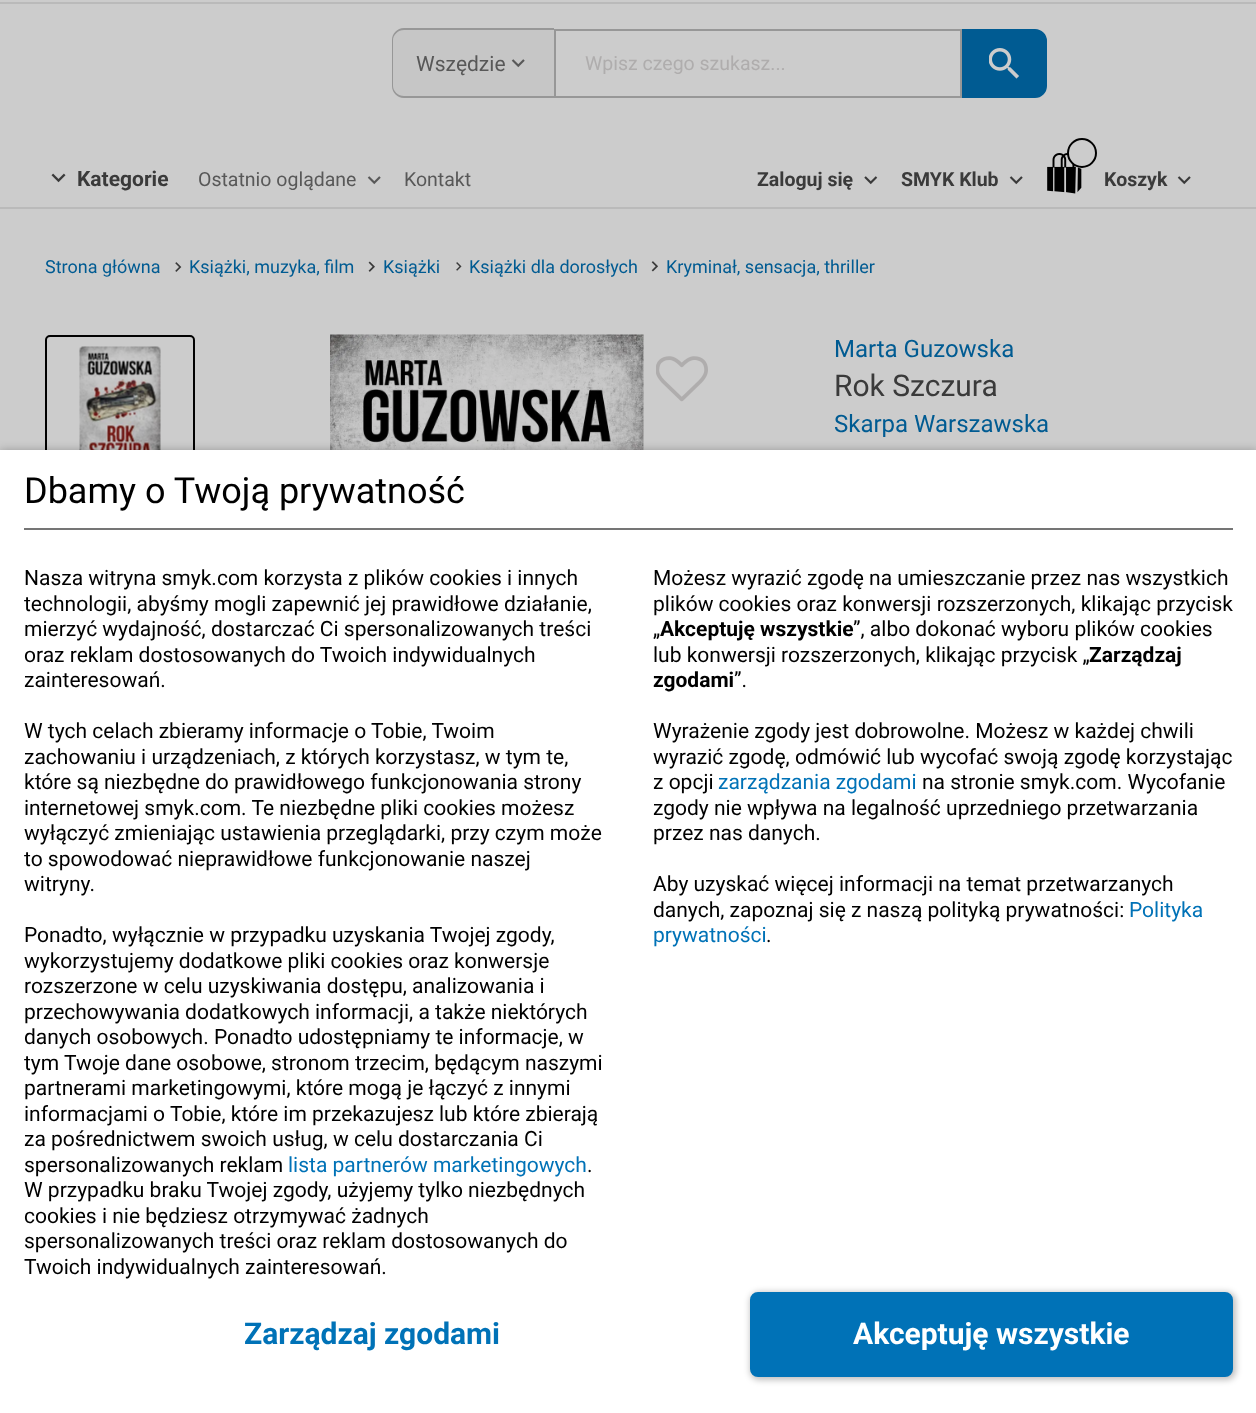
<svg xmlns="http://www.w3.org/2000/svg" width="1256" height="1413">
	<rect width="100%" height="100%" fill="#CCCCCC" />
	<rect x="0" y="207" width="1256" height="2" fill="#BABABA" />
	<rect x="0" y="2" width="1256" height="2" fill="#BABABA" />
	<path d="M404 29H554V98H404C397.5 98 392 92.5 392 86V41C392 34.5 397.5 29 404 29Z" fill="#C6C6C6" />
	<path d="M404 28H554V98H404C397 98 392 92 392 86V40C392 34 397 28 404 28ZM404 30H554V96H404C398 96 393 91 393 86V40C393 35 398 30 404 30Z" fill="#979797" fill-rule="evenodd" />
	<text x="416" y="71" font-family="Roboto" font-size="21" fill="#585858">Wszędzie</text>
	<image x="511" y="59" width="14" height="9" href="assets/img1.png" />
	<rect x="555" y="30" width="406" height="67" fill="none" stroke="#979797" stroke-width="2" />
	<text x="585" y="70" font-family="Roboto" font-size="19.5" fill="#AFADAD">Wpisz czego szukasz...</text>
	<path d="M963 30H1035C1041 30 1046 35 1046 41V86C1046 92 1041 97 1035 97H963Z" fill="#005B92" stroke="#005B92" stroke-width="2" />
	<image x="989" y="48" width="30" height="31" href="assets/img2.png" />
	<image x="51" y="173" width="15" height="10" href="assets/img3.png" />
	<text x="77" y="186" font-family="Roboto" font-size="21" font-weight="700" fill="#3A3A3A">Kategorie</text>
	<text x="757" y="186" font-family="Roboto" font-size="19.5" font-weight="700" fill="#3A3A3A">Zaloguj się</text>
	<image x="864" y="176" width="14" height="9" href="assets/img4.png" />
	<text x="901" y="186" font-family="Roboto" font-size="19.5" font-weight="700" fill="#3A3A3A">SMYK Klub</text>
	<image x="1009" y="176" width="14" height="9" href="assets/img5.png" />
	<image x="1047" y="153" width="35" height="41" href="assets/img6.png" />
	<circle cx="1082" cy="153" r="14" fill="#CCCCCC" stroke="#000000" stroke-width="2" />
	<text x="1104" y="186" font-family="Roboto" font-size="19.5" font-weight="700" fill="#3A3A3A">Koszyk</text>
	<image x="1177" y="176" width="14" height="9" href="assets/img5.png" />
	<rect x="46" y="336" width="148" height="148" rx="4" fill="none" stroke="#000000" stroke-width="2" />
	<image x="79" y="346" width="82" height="104" href="assets/img12.png" />
	<image x="330" y="334" width="314" height="116" href="assets/img13.png" />
	<rect x="0" y="450" width="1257" height="963" fill="#000000" fill-opacity="0.25" filter="blur(4px)" />
	<rect x="0" y="450" width="1256" height="963" fill="#FFFFFF" />
	<rect x="24" y="528" width="1209" height="2" fill="#757575" />
	<text x="24" y="503" font-family="Roboto" font-size="36" fill="#000000">Dbamy o Twoją prywatność</text>
	<g font-family="Roboto" font-size="21" fill="#000000">
		<text x="24" y="585">Nasza witryna smyk.com korzysta z plików cookies i innych</text>
		<text x="24" y="611">technologii, abyśmy mogli zapewnić jej prawidłowe działanie,</text>
		<text x="24" y="636">mierzyć wydajność, dostarczać Ci spersonalizowanych treści</text>
		<text x="24" y="662">oraz reklam dostosowanych do Twoich indywidualnych</text>
		<text x="24" y="687">zainteresowań.</text>
		<text x="24" y="738">W tych celach zbieramy informacje o Tobie, Twoim</text>
		<text x="24" y="764">zachowaniu i urządzeniach, z których korzystasz, w tym te,</text>
		<text x="24" y="789">które są niezbędne do prawidłowego funkcjonowania strony</text>
		<text x="24" y="815">internetowej smyk.com. Te niezbędne pliki cookies możesz</text>
		<text x="24" y="840">wyłączyć zmieniając ustawienia przeglądarki, przy czym może</text>
		<text x="24" y="866">to spowodować nieprawidłowe funkcjonowanie naszej</text>
		<text x="24" y="891">witryny.</text>
		<text x="24" y="942">Ponadto, wyłącznie w przypadku uzyskania Twojej zgody,</text>
		<text x="24" y="968">wykorzystujemy dodatkowe pliki cookies oraz konwersje</text>
		<text x="24" y="993">rozszerzone w celu uzyskiwania dostępu, analizowania i</text>
		<text x="24" y="1019">przechowywania dodatkowych informacji, a także niektórych</text>
		<text x="24" y="1044">danych osobowych. Ponadto udostępniamy te informacje, w</text>
		<text x="24" y="1070">tym Twoje dane osobowe, stronom trzecim, będącym naszymi</text>
		<text x="24" y="1095">partnerami marketingowymi, które mogą je łączyć z innymi</text>
		<text x="24" y="1121">informacjami o Tobie, które im przekazujesz lub które zbierają</text>
		<text x="24" y="1146">za pośrednictwem swoich usług, w celu dostarczania Ci</text>
		<text x="24" y="1172">spersonalizowanych reklam</text>
	</g>
	<text x="288" y="1172" font-family="Roboto" font-size="21" fill="#0072B7">lista partnerów marketingowych</text>
	<g font-family="Roboto" font-size="21" fill="#000000">
		<text x="587" y="1172">.</text>
		<text x="24" y="1197">W przypadku braku Twojej zgody, użyjemy tylko niezbędnych</text>
		<text x="24" y="1223">cookies i nie będziesz otrzymywać żadnych</text>
		<text x="24" y="1248">spersonalizowanych treści oraz reklam dostosowanych do</text>
		<text x="24" y="1274">Twoich indywidualnych zainteresowań.</text>
		<text x="653" y="585">Możesz wyrazić zgodę na umieszczanie przez nas wszystkich</text>
		<text x="653" y="611">plików cookies oraz konwersji rozszerzonych, klikając przycisk</text>
		<text x="653" y="636">„</text>
	</g>
	<text x="660" y="636" font-family="Roboto" font-size="21" font-weight="700" fill="#000000">Akceptuję wszystkie</text>
	<g font-family="Roboto" font-size="21" fill="#000000">
		<text x="853" y="636">”, albo dokonać wyboru plików cookies</text>
		<text x="653" y="662">lub konwersji rozszerzonych, klikając przycisk „</text>
	</g>
	<g font-family="Roboto" font-size="21" font-weight="700" fill="#000000">
		<text x="1089" y="662">Zarządzaj</text>
		<text x="653" y="687">zgodami</text>
	</g>
	<g font-family="Roboto" font-size="21" fill="#000000">
		<text x="734" y="687">”.</text>
		<text x="653" y="738">Wyrażenie zgody jest dobrowolne. Możesz w każdej chwili</text>
		<text x="653" y="764">wyrazić zgodę, odmówić lub wycofać swoją zgodę korzystając</text>
		<text x="653" y="789">z opcji</text>
	</g>
	<text x="718" y="789" font-family="Roboto" font-size="21" fill="#0072B7">zarządzania zgodami</text>
	<g font-family="Roboto" font-size="21" fill="#000000">
		<text x="922" y="789">na stronie smyk.com. Wycofanie</text>
		<text x="653" y="815">zgody nie wpływa na legalność uprzedniego przetwarzania</text>
		<text x="653" y="840">przez nas danych.</text>
		<text x="653" y="891">Aby uzyskać więcej informacji na temat przetwarzanych</text>
		<text x="653" y="917">danych, zapoznaj się z naszą polityką prywatności:</text>
	</g>
	<g font-family="Roboto" font-size="21" fill="#0072B7">
		<text x="1129" y="917">Polityka</text>
		<text x="653" y="942">prywatności</text>
	</g>
	<text x="766" y="942" font-family="Roboto" font-size="21" fill="#000000">.</text>
	<text x="244" y="1344" font-family="Roboto" font-size="30" font-weight="700" fill="#0072B7">Zarządzaj zgodami</text>
	<rect x="750" y="1292" width="486" height="88" rx="9" fill="#000000" fill-opacity="0.25" filter="blur(3px)" />
	<rect x="751" y="1293" width="481" height="83" rx="7" fill="#0072B7" stroke="#0072B7" stroke-width="2" />
	<text x="853" y="1344" font-family="Roboto" font-size="30" font-weight="700" fill="#FFFFFF">Akceptuję wszystkie</text>
	<text x="198" y="186" font-family="Roboto" font-size="19.5" fill="#585858">Ostatnio oglądane</text>
	<image x="367" y="176" width="14" height="9" href="assets/img7.png" />
	<text x="404" y="186" font-family="Roboto" font-size="19.5" fill="#585858">Kontakt</text>
	<text x="45" y="273" font-family="Roboto" font-size="18" fill="#005B92">Strona główna</text>
	<image x="175" y="262" width="7" height="10" href="assets/img8.png" />
	<text x="189" y="273" font-family="Roboto" font-size="18" fill="#005B92">Książki, muzyka, film</text>
	<image x="368" y="261" width="7" height="11" href="assets/img9.png" />
	<text x="383" y="273" font-family="Roboto" font-size="18" fill="#005B92">Książki</text>
	<image x="456" y="262" width="6" height="9" href="assets/img10.png" />
	<text x="469" y="273" font-family="Roboto" font-size="18" fill="#005B92">Książki dla dorosłych</text>
	<image x="651" y="261" width="7" height="11" href="assets/img11.png" />
	<text x="666" y="273" font-family="Roboto" font-size="18" fill="#005B92">Kryminał, sensacja, thriller</text>
	<image x="656" y="356" width="52" height="46" href="assets/img14.png" />
	<text x="834" y="357" font-family="Roboto" font-size="24" fill="#005B92">Marta Guzowska</text>
	<text x="834" y="396" font-family="Roboto" font-size="30" fill="#3A3A3A">Rok Szczura</text>
	<text x="834" y="432" font-family="Roboto" font-size="24" fill="#005B92">Skarpa Warszawska</text>
</svg>
